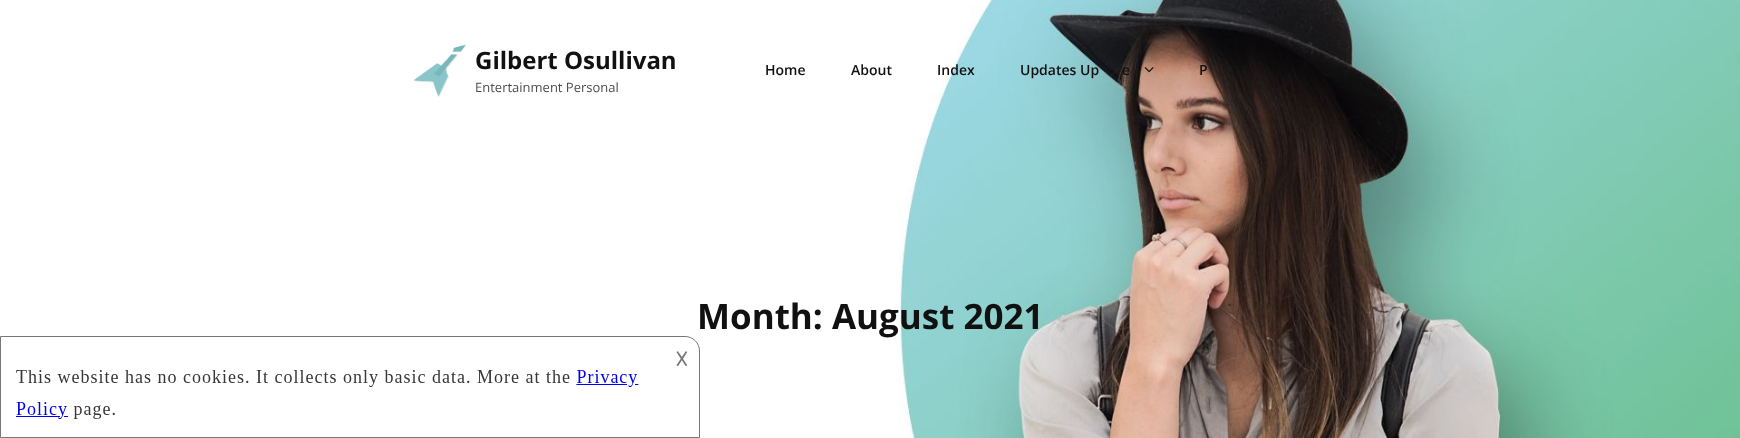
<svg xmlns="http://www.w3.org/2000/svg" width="1740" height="438">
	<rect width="100%" height="100%" fill="#FFFFFF" />
	<image x="413" y="44" width="53" height="53" href="assets/img1.png" />
	<text x="475" y="69" font-family="Open Sans" font-size="24" font-weight="700" fill="#111111">Gilbert Osullivan</text>
	<text x="475" y="92" font-family="Open Sans" font-size="13" fill="#4D4D4D">Entertainment Personal</text>
	<g font-family="Open Sans" font-size="14" font-weight="600" fill="#111111">
		<text x="765" y="75">Home</text>
		<text x="851" y="75">About</text>
	</g>
	<image x="899" y="0" width="841" height="438" href="assets/img4.png" />
	<g font-family="Open Sans" font-size="14" font-weight="600" fill="#111111">
		<text x="937" y="75">Index</text>
		<text x="1020" y="75">Updates Up</text>
		<text x="1122" y="75">e</text>
	</g>
	<image x="1144" y="67" width="10" height="6" href="assets/img2.png" />
	<text x="1199" y="75" font-family="Open Sans" font-size="14" font-weight="600" fill="#111111">P</text>
	<image x="1321" y="71" width="13" height="7" href="assets/img3.png" />
	<text x="697" y="329" font-family="Open Sans" font-size="35" font-weight="700" fill="#111111">Month: August 2021</text>
	<path d="M.5 336.5H685C693 336.5 699.5 343 699.5 351V437.5H.5Z" fill="none" stroke="#777777" />
	<text x="675" y="366" font-family="DejaVu Sans" font-size="20" fill="#777777">𐌢</text>
	<image x="16" y="370" width="623" height="49" href="assets/img5.png" />
</svg>
